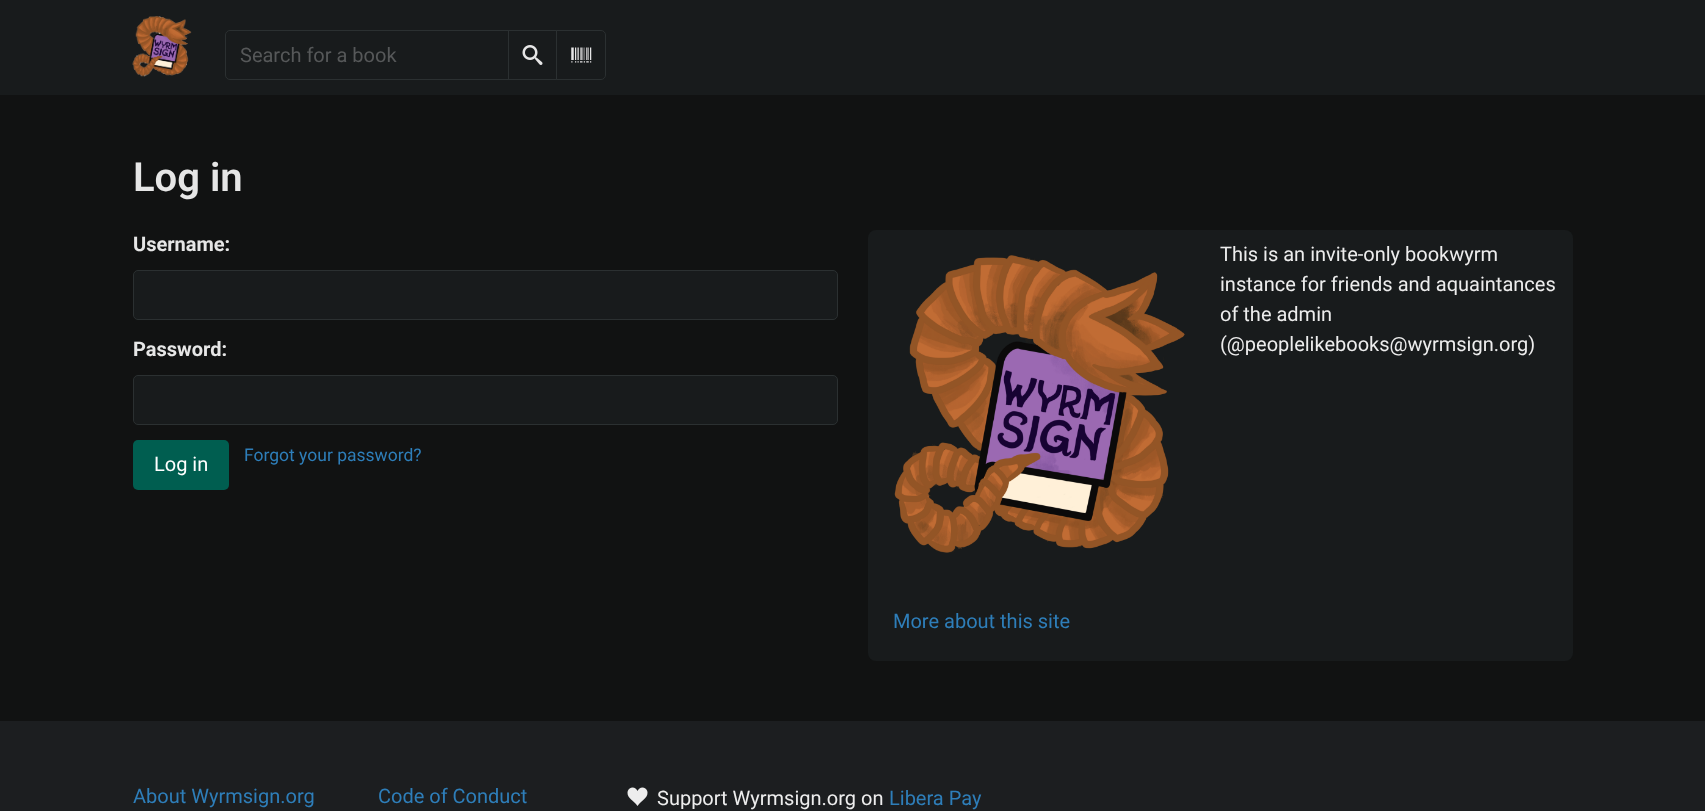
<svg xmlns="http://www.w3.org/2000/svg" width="1705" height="811">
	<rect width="100%" height="100%" fill="#111212" />
	<rect x="0" y="0" width="1705" height="95" fill="#181B1C" />
	<image x="132" y="16" width="60" height="61" href="assets/img1.png" />
	<path d="M230 30.5H508.5V79.5H230C227.5 79.5 225.5 77.5 225.5 75V35C225.5 32.5 227.5 30.5 230 30.5Z" fill="none" stroke="#2B3031" />
	<text x="240" y="62" font-family="Roboto" font-size="20" fill="#565859">Search for a book</text>
	<rect x="508.5" y="30.5" width="49" height="49" fill="none" stroke="#2B3031" />
	<image x="522" y="45" width="21" height="20" href="assets/img2.png" />
	<path d="M556.5 30.5H601C603.5 30.5 605.5 32.5 605.5 35V75C605.5 77.5 603.5 79.5 601 79.5H556.5Z" fill="#181B1C" stroke="#2B3031" />
	<image x="571" y="47" width="21" height="16" href="assets/img3.png" />
	<text x="133" y="191" font-family="Roboto" font-size="40" font-weight="600" fill="#E6E6E6">Log in</text>
	<text x="133" y="251" font-family="Roboto" font-size="20" font-weight="700" fill="#E6E6E6">Username:</text>
	<rect x="133.5" y="270.5" width="704" height="49" rx="4.5" fill="#181B1C" stroke="#2B3031" />
	<text x="133" y="356" font-family="Roboto" font-size="20" font-weight="700" fill="#E6E6E6">Password:</text>
	<rect x="133.5" y="375.5" width="704" height="49" rx="4.5" fill="#181B1C" stroke="#2B3031" />
	<rect x="133" y="440" width="96" height="50" rx="5" fill="#005E50" />
	<text x="154" y="471" font-family="Roboto" font-size="20" fill="#FFFFFF">Log in</text>
	<text x="244" y="461" font-family="Roboto" font-size="17.5" fill="#2E7EB9">Forgot your password?</text>
	<rect x="868" y="230" width="705" height="431" rx="8" fill="#181B1C" />
	<image x="894" y="255" width="291" height="298" href="assets/img4.png" />
	<g font-family="Roboto" font-size="20" fill="#EDEDED">
		<text x="1220" y="261">This is an invite-only bookwyrm</text>
		<text x="1220" y="291">instance for friends and aquaintances</text>
		<text x="1220" y="321">of the admin</text>
		<text x="1220" y="351">(@peoplelikebooks@wyrmsign.org)</text>
	</g>
	<text x="893" y="628" font-family="Roboto" font-size="20" fill="#2E7EB9">More about this site</text>
	<rect x="0" y="721" width="1705" height="90" fill="#1C1E20" />
	<g font-family="Roboto" font-size="20" fill="#2E7EB9">
		<text x="133" y="803">About Wyrmsign.org</text>
		<text x="378" y="803">Code of Conduct</text>
	</g>
	<image x="627" y="787" width="21" height="19" href="assets/img5.png" />
	<text x="657" y="805" font-family="Roboto" font-size="20" fill="#EDEDED">Support Wyrmsign.org on</text>
	<text x="889" y="805" font-family="Roboto" font-size="20" fill="#2E7EB9">Libera Pay</text>
</svg>
